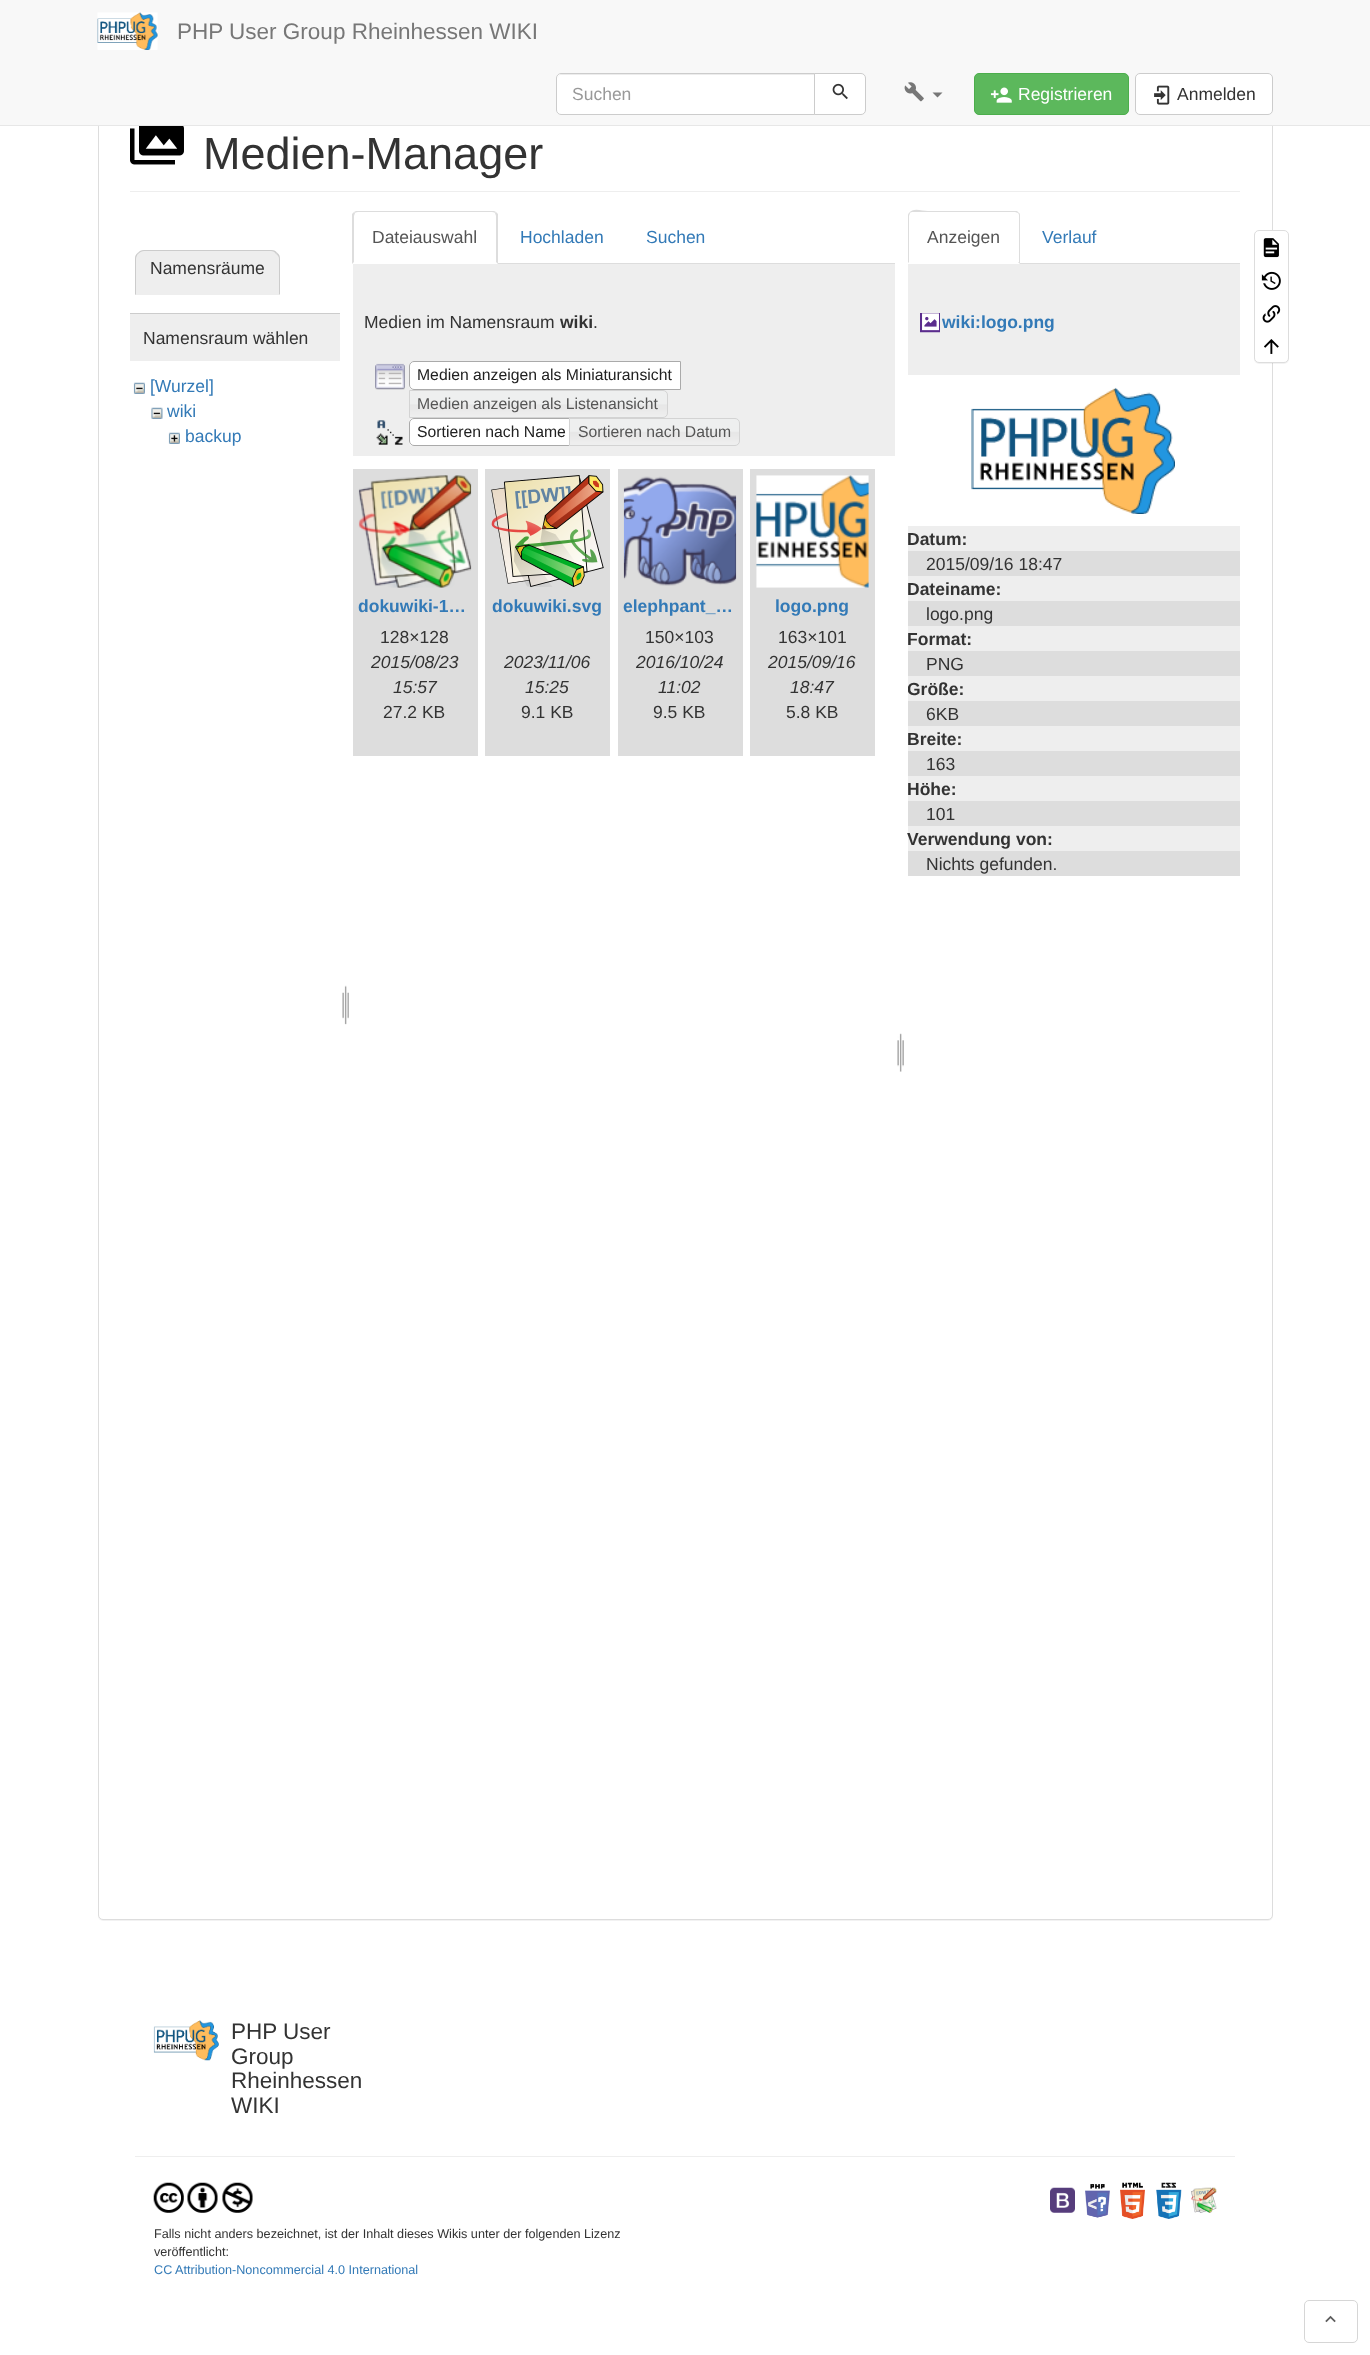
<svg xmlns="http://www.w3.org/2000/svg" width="1370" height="2355">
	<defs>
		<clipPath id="clip1"><rect x="908" y="388" width="332" height="1413" /></clipPath>
	</defs>
	<rect width="100%" height="100%" fill="#FFFFFF" />
	<rect x="98" y="53" width="1175" height="1868" rx="5" fill="#000000" fill-opacity="0.05" filter="blur(0.5px)" />
	<rect x="98.5" y="51.5" width="1174" height="1868" rx="4.5" fill="#FFFFFF" stroke="#DDDDDD" />
	<rect x="0" y="0" width="1370" height="125" fill="#F8F8F8" />
	<rect x="0" y="125" width="1370" height="1" fill="#E7E7E7" />
	<image x="97" y="12" width="61" height="38" href="assets/img1.png" />
	<text x="177" y="39" font-family="Liberation Sans" font-size="22.5" fill="#777777">PHP User Group Rheinhessen WIKI</text>
	<path d="M561 73H815V115H561C558 115 556 113 556 110V78C556 75 558 73 561 73Z" fill="#FFFFFF" />
	<path d="M561 75H814V74H562C560 74 558 76 558 78V79C558 77 559 75 561 75Z" fill="#ECECEC" />
	<path d="M561 73.5H814.5V114.5H561C558.5 114.5 556.5 112.5 556.5 110V78C556.5 75.5 558.5 73.5 561 73.5Z" fill="none" stroke="#CCCCCC" />
	<text x="572" y="100" font-family="Liberation Sans" font-size="17.5" fill="#999999">Suchen</text>
	<path d="M814.5 73.5H861C863.5 73.5 865.5 75.5 865.5 78V110C865.5 112.5 863.5 114.5 861 114.5H814.5Z" fill="#FFFFFF" stroke="#CCCCCC" />
	<image x="832" y="83" width="16" height="17" href="assets/img2.png" />
	<image x="904" y="82" width="20" height="20" href="assets/img3.png" />
	<path d="M932.5 92.5H942.5L937.5 97.5Z" fill="#777777" />
	<rect x="974.5" y="73.5" width="154" height="41" rx="4.5" fill="#5CB85C" stroke="#4CAE4C" />
	<image x="990" y="87" width="22" height="16" href="assets/img4.png" />
	<text x="1018" y="100" font-family="Liberation Sans" font-size="17.5" fill="#FFFFFF">Registrieren</text>
	<rect x="1135.5" y="73.5" width="137" height="41" rx="4.5" fill="#FFFFFF" stroke="#CCCCCC" />
	<image x="1154" y="85" width="16" height="20" href="assets/img5.png" />
	<text x="1177" y="100" font-family="Liberation Sans" font-size="17.5" fill="#333333">Anmelden</text>
	<rect x="130" y="191" width="1110" height="1" fill="#EEEEEE" />
	<image x="130" y="126" width="54" height="39" href="assets/img6.png" />
	<text x="203" y="169" font-family="Liberation Sans" font-size="45" fill="#333333">Medien-Manager</text>
	<path d="M144 250H271C276 250 280 254 280 259V295H135V259C135 254 139 250 144 250Z" fill="#EEEEEE" />
	<path d="M144 250C142 250 139 251 138 253V254C140 252 142 251 144 251H271C273 251 275 252 276 254L277 253C276 251 274 250 271 250Z" fill="#CCCCCC" />
	<path d="M280 295V259C280 256 279 254 277 253L276 254C278 255 279 257 279 259V294Z" fill="#CCCCCC" />
	<path d="M280 295L279 294H136L135 295Z" fill="#EEEEEE" />
	<path d="M135 295L136 294V259C136 257 137 255 138 254V253C136 254 135 256 135 259Z" fill="#CCCCCC" />
	<text x="150" y="274" font-family="Liberation Sans" font-size="17.5" fill="#333333">Namensräume</text>
	<rect x="130" y="314" width="210" height="47" fill="#EEEEEE" />
	<rect x="130" y="313" width="210" height="1" fill="#CCCCCC" />
	<text x="143" y="344" font-family="Liberation Sans" font-size="17.5" fill="#333333">Namensraum wählen</text>
	<image x="133" y="382" width="12" height="12" href="assets/img7.png" />
	<text x="150" y="392" font-family="Liberation Sans" font-size="17.5" fill="#337AB7">[Wurzel]</text>
	<image x="151" y="407" width="12" height="12" href="assets/img8.png" />
	<text x="167" y="417" font-family="Liberation Sans" font-size="17.5" fill="#337AB7">wiki</text>
	<image x="168" y="432" width="12" height="12" href="assets/img9.png" />
	<text x="185" y="442" font-family="Liberation Sans" font-size="17.5" fill="#337AB7">backup</text>
	<image x="342" y="985" width="7" height="40" href="assets/img10.png" />
	<rect x="498" y="263" width="397" height="1" fill="#DDDDDD" />
	<path d="M358 212C356 212 355 213 355 213L354 212L356 211H494L496 212L495 213C495 213 494 212 492 212Z" fill="#DDDDDD" />
	<path d="M496 212L498 214V264L496 262V216L495 213Z" fill="#DDDDDD" />
	<path d="M352 264V214L354 212L355 213L354 216V262Z" fill="#DDDDDD" />
	<text x="372" y="243" font-family="Liberation Sans" font-size="17.5" fill="#555555">Dateiauswahl</text>
	<g font-family="Liberation Sans" font-size="17.5" fill="#337AB7">
		<text x="520" y="243">Hochladen</text>
		<text x="646" y="243">Suchen</text>
	</g>
	<rect x="353" y="264" width="542" height="192" fill="#EEEEEE" />
	<text x="364" y="328" font-family="Liberation Sans" font-size="17.5" fill="#333333">Medien im Namensraum</text>
	<text x="560" y="328" font-family="Liberation Sans" font-size="17.5" font-weight="700" fill="#333333">wiki</text>
	<text x="593" y="328" font-family="Liberation Sans" font-size="17.5" fill="#333333">.</text>
	<image x="375" y="363" width="30" height="27" href="assets/img11.png" />
	<path d="M414 361H681V390H414C411 390 409 388 409 385V366C409 363 411 361 414 361Z" fill="#FFFFFF" />
	<image x="409" y="386" width="3" height="4" href="assets/img12.png" />
	<path d="M414 361.5H680.5V389.5H414C411.5 389.5 409.5 387.5 409.5 385V366C409.5 363.5 411.5 361.5 414 361.5Z" fill="none" stroke="#AAAAAA" />
	<text x="417" y="380" font-family="Liberation Sans" font-size="15.75" fill="#212121">Medien anzeigen als Miniaturansicht</text>
	<image x="410" y="390" width="257" height="28" href="assets/img13.png" />
	<path d="M409.5 390.5H663C665.5 390.5 667.5 392.5 667.5 395V413C667.5 415.5 665.5 417.5 663 417.5H409.5Z" fill="none" stroke="#D3D3D3" />
	<text x="417" y="409" font-family="Liberation Sans" font-size="15.75" fill="#555555">Medien anzeigen als Listenansicht</text>
	<image x="376" y="420" width="27" height="25" href="assets/img14.png" />
	<path d="M414 418H575V446H414C411 446 409 444 409 441V423C409 420 411 418 414 418Z" fill="#FFFFFF" />
	<image x="409" y="418" width="4" height="28" href="assets/img15.png" />
	<path d="M414 418.5H574.5V445.5H414C411.5 445.5 409.5 443.5 409.5 441V423C409.5 420.5 411.5 418.5 414 418.5Z" fill="none" stroke="#AAAAAA" />
	<text x="417" y="437" font-family="Liberation Sans" font-size="15.75" fill="#212121">Sortieren nach Name</text>
	<image x="568" y="418" width="172" height="28" href="assets/img16.png" />
	<path d="M569.5 418.5H735C737.5 418.5 739.5 420.5 739.5 423V441C739.5 443.5 737.5 445.5 735 445.5H569.5Z" fill="none" stroke="#D3D3D3" />
	<text x="578" y="437" font-family="Liberation Sans" font-size="15.75" fill="#555555">Sortieren nach Datum</text>
	<rect x="353" y="469" width="125" height="287" fill="#DDDDDD" />
	<image x="358" y="475" width="114" height="113" href="assets/img17.png" />
	<text x="358" y="612" font-family="Liberation Sans" font-size="17.5" font-weight="700" fill="#337AB7">dokuwiki-1…</text>
	<text x="380" y="643" font-family="Liberation Sans" font-size="17.5" fill="#333333">128×128</text>
	<g font-family="Liberation Sans" font-size="17.5" font-style="italic" fill="#333333">
		<text x="371" y="668">2015/08/23</text>
		<text x="393" y="693">15:57</text>
	</g>
	<text x="383" y="718" font-family="Liberation Sans" font-size="17.5" fill="#333333">27.2 KB</text>
	<rect x="485" y="469" width="125" height="287" fill="#DDDDDD" />
	<image x="491" y="475" width="113" height="112" href="assets/img18.png" />
	<text x="492" y="612" font-family="Liberation Sans" font-size="17.5" font-weight="700" fill="#337AB7">dokuwiki.svg</text>
	<g font-family="Liberation Sans" font-size="17.5" font-style="italic" fill="#333333">
		<text x="504" y="668">2023/11/06</text>
		<text x="525" y="693">15:25</text>
	</g>
	<text x="521" y="718" font-family="Liberation Sans" font-size="17.5" fill="#333333">9.1 KB</text>
	<rect x="618" y="469" width="125" height="287" fill="#DDDDDD" />
	<image x="623" y="476" width="114" height="110" href="assets/img19.png" />
	<text x="623" y="612" font-family="Liberation Sans" font-size="17.5" font-weight="700" fill="#337AB7">elephpant_…</text>
	<text x="645" y="643" font-family="Liberation Sans" font-size="17.5" fill="#333333">150×103</text>
	<g font-family="Liberation Sans" font-size="17.5" font-style="italic" fill="#333333">
		<text x="636" y="668">2016/10/24</text>
		<text x="658" y="693">11:02</text>
	</g>
	<text x="653" y="718" font-family="Liberation Sans" font-size="17.5" fill="#333333">9.5 KB</text>
	<rect x="750" y="469" width="125" height="287" fill="#DDDDDD" />
	<image x="756" y="475" width="113" height="113" href="assets/img20.png" />
	<text x="775" y="612" font-family="Liberation Sans" font-size="17.5" font-weight="700" fill="#337AB7">logo.png</text>
	<text x="778" y="643" font-family="Liberation Sans" font-size="17.5" fill="#333333">163×101</text>
	<g font-family="Liberation Sans" font-size="17.5" font-style="italic" fill="#333333">
		<text x="768" y="668">2015/09/16</text>
		<text x="790" y="693">18:47</text>
	</g>
	<text x="786" y="718" font-family="Liberation Sans" font-size="17.5" fill="#333333">5.8 KB</text>
	<image x="897" y="1033" width="7" height="39" href="assets/img21.png" />
	<rect x="1020" y="263" width="220" height="1" fill="#DDDDDD" />
	<path d="M912 212C911 212 910 213 910 213H909C913 207 922 211 928 211H1017L1019 213H1018L1015 212Z" fill="#DDDDDD" />
	<path d="M1020 264V216C1020 215 1020 213 1019 213H1018C1019 214 1019 215 1019 216V262H1018Z" fill="#DDDDDD" />
	<path d="M908 263V216C908 215 908 214 909 213H910L909 216V262Z" fill="#DDDDDD" />
	<text x="927" y="243" font-family="Liberation Sans" font-size="17.5" fill="#555555">Anzeigen</text>
	<text x="1042" y="243" font-family="Liberation Sans" font-size="17.5" fill="#337AB7">Verlauf</text>
	<rect x="908" y="264" width="332" height="111" fill="#EEEEEE" />
	<image x="920" y="313" width="20" height="20" href="assets/img22.png" />
	<text x="942" y="328" font-family="Liberation Sans" font-size="17.5" font-weight="700" fill="#337AB7">wiki:logo.png</text>
	<image x="971" y="387" width="204" height="127" href="assets/img23.png" />
	<rect x="908" y="526" width="332" height="25" fill="#EEEEEE" />
	<text x="907" y="545" font-family="Liberation Sans" font-size="17.5" font-weight="700" fill="#333333">Datum:</text>
	<rect x="908" y="551" width="332" height="25" fill="#DDDDDD" />
	<text x="926" y="570" font-family="Liberation Sans" font-size="17.5" fill="#333333">2015/09/16 18:47</text>
	<rect x="908" y="576" width="332" height="25" fill="#EEEEEE" />
	<text x="907" y="595" font-family="Liberation Sans" font-size="17.5" font-weight="700" fill="#333333">Dateiname:</text>
	<rect x="908" y="601" width="332" height="25" fill="#DDDDDD" />
	<text x="926" y="620" font-family="Liberation Sans" font-size="17.5" fill="#333333">logo.png</text>
	<rect x="908" y="626" width="332" height="25" fill="#EEEEEE" />
	<text x="907" y="645" font-family="Liberation Sans" font-size="17.5" font-weight="700" fill="#333333">Format:</text>
	<rect x="908" y="651" width="332" height="25" fill="#DDDDDD" />
	<text x="926" y="670" font-family="Liberation Sans" font-size="17.5" fill="#333333">PNG</text>
	<rect x="908" y="676" width="332" height="25" fill="#EEEEEE" />
	<g clip-path="url(#clip1)">
		<text x="907" y="695" font-family="Liberation Sans" font-size="17.5" font-weight="700" fill="#333333">Größe:</text>
	</g>
	<rect x="908" y="701" width="332" height="25" fill="#DDDDDD" />
	<text x="926" y="720" font-family="Liberation Sans" font-size="17.5" fill="#333333">6KB</text>
	<rect x="908" y="726" width="332" height="25" fill="#EEEEEE" />
	<text x="907" y="745" font-family="Liberation Sans" font-size="17.5" font-weight="700" fill="#333333">Breite:</text>
	<rect x="908" y="751" width="332" height="25" fill="#DDDDDD" />
	<text x="926" y="770" font-family="Liberation Sans" font-size="17.5" fill="#333333">163</text>
	<rect x="908" y="776" width="332" height="25" fill="#EEEEEE" />
	<text x="907" y="795" font-family="Liberation Sans" font-size="17.5" font-weight="700" fill="#333333">Höhe:</text>
	<rect x="908" y="801" width="332" height="25" fill="#DDDDDD" />
	<text x="926" y="820" font-family="Liberation Sans" font-size="17.5" fill="#333333">101</text>
	<rect x="908" y="826" width="332" height="25" fill="#EEEEEE" />
	<text x="907" y="845" font-family="Liberation Sans" font-size="17.5" font-weight="700" fill="#333333">Verwendung von:</text>
	<rect x="908" y="851" width="332" height="25" fill="#DDDDDD" />
	<text x="926" y="870" font-family="Liberation Sans" font-size="17.5" fill="#333333">Nichts gefunden.</text>
	<rect x="1254" y="231" width="35" height="133" rx="5" fill="#000000" fill-opacity="0.05" filter="blur(0.5px)" />
	<rect x="1254.5" y="230.5" width="34" height="132" rx="4.5" fill="#FFFFFF" stroke="#DDDDDD" />
	<image x="1263" y="238" width="16" height="20" href="assets/img24.png" />
	<image x="1261" y="271" width="20" height="19" href="assets/img25.png" />
	<image x="1262" y="305" width="19" height="18" href="assets/img26.png" />
	<image x="1264" y="339" width="15" height="15" href="assets/img27.png" />
	<image x="153" y="2020" width="66" height="41" href="assets/img28.png" />
	<g font-family="Liberation Sans" font-size="22.5" fill="#333333">
		<text x="231" y="2039">PHP User</text>
		<text x="231" y="2064">Group</text>
		<text x="231" y="2088">Rheinhessen</text>
		<text x="231" y="2113">WIKI</text>
	</g>
	<rect x="135" y="2156" width="1100" height="1" fill="#EEEEEE" />
	<image x="1050" y="2187" width="25" height="26" href="assets/img29.png" />
	<image x="1085" y="2184" width="25" height="34" href="assets/img30.png" />
	<image x="1120" y="2182" width="25" height="37" href="assets/img31.png" />
	<image x="1156" y="2182" width="26" height="37" href="assets/img32.png" />
	<image x="1191" y="2187" width="26" height="26" href="assets/img33.png" />
	<image x="153" y="2182" width="31" height="31" href="assets/img34.png" />
	<image x="187" y="2182" width="31" height="31" href="assets/img35.png" />
	<image x="222" y="2182" width="31" height="31" href="assets/img36.png" />
	<g font-family="Liberation Sans" font-size="12.65" fill="#333333">
		<text x="154" y="2238">Falls nicht anders bezeichnet, ist der Inhalt dieses Wikis unter der folgenden Lizenz</text>
		<text x="154" y="2256">veröffentlicht:</text>
	</g>
	<text x="154" y="2274" font-family="Liberation Sans" font-size="12.65" fill="#337AB7">CC Attribution-Noncommercial 4.0 International</text>
	<rect x="1304.5" y="2300.5" width="53" height="42" rx="4.5" fill="none" stroke="#D6D6D6" />
	<image x="1325" y="2315" width="11" height="8" href="assets/img37.png" />
</svg>
